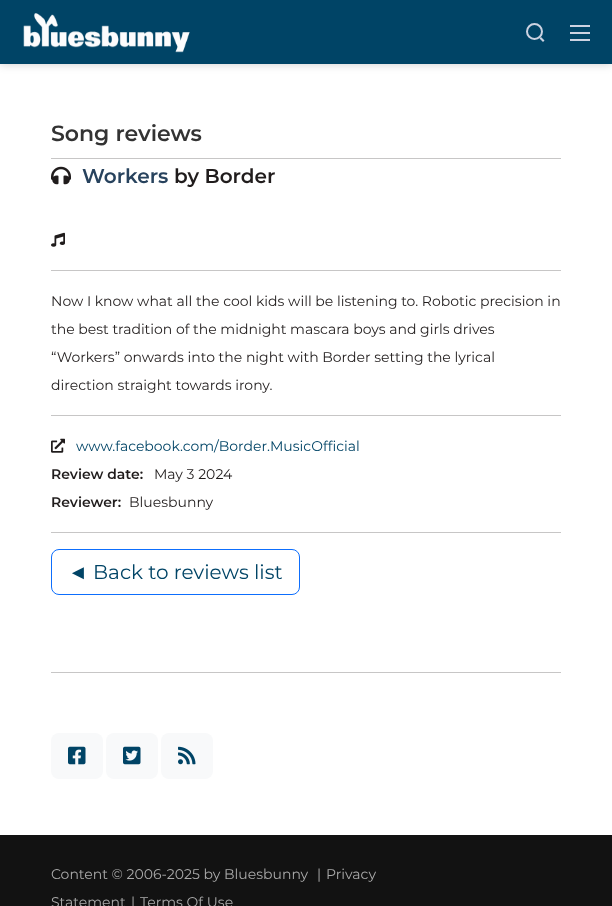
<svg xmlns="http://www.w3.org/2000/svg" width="612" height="906">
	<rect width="100%" height="100%" fill="#FFFFFF" />
	<rect x="0" y="0" width="612" height="64" fill="#000000" fill-opacity="0.2" filter="blur(5px)" />
	<rect x="0" y="0" width="612" height="64" fill="#004466" />
	<image x="23" y="13" width="167" height="40" href="assets/img1.png" />
	<circle cx="534.5" cy="31.5" r="7.5" fill="none" stroke="#CCD3E2" stroke-width="2" />
	<path d="M541 37L544.5 40.5L543 42L539.5 38.5Z" fill="#CCD3E2" />
	<rect x="570" y="25" width="20" height="2" fill="#CCD3E2" />
	<rect x="570" y="32" width="20" height="2" fill="#CCD3E2" />
	<rect x="570" y="39" width="20" height="2" fill="#CCD3E2" />
	<text x="51" y="141" font-family="Montserrat" font-size="22" font-weight="600" fill="#333333">Song reviews</text>
	<rect x="51" y="158" width="510" height="1" fill="#C7C6C6" />
	<image x="51" y="166" width="20" height="19" href="assets/img2.png" />
	<text x="82" y="183" font-family="Montserrat" font-size="20" font-weight="600" fill="#27425D">Workers</text>
	<text x="174" y="183" font-family="Montserrat" font-size="20" font-weight="600" fill="#201C1C">by Border</text>
	<image x="51" y="232" width="14" height="15" href="assets/img3.png" />
	<rect x="51" y="270" width="510" height="1" fill="#C7C6C6" />
	<g font-family="Montserrat" font-size="14" fill="#201C1C">
		<text x="51" y="306">Now I know what all the cool kids will be listening to. Robotic precision in</text>
		<text x="51" y="334">the best tradition of the midnight mascara boys and girls drives</text>
		<text x="51" y="362">“Workers” onwards into the night with Border setting the lyrical</text>
		<text x="51" y="390">direction straight towards irony.</text>
	</g>
	<rect x="51" y="415" width="510" height="1" fill="#C7C6C6" />
	<image x="51" y="438" width="14" height="15" href="assets/img4.png" />
	<text x="76" y="451" font-family="Montserrat" font-size="14" fill="#004466">www.facebook.com/Border.MusicOfficial</text>
	<text x="51" y="479" font-family="Montserrat" font-size="14" font-weight="600" fill="#201C1C">Review date:</text>
	<text x="154" y="479" font-family="Montserrat" font-size="14" fill="#201C1C">May 3 2024</text>
	<text x="51" y="507" font-family="Montserrat" font-size="14" font-weight="600" fill="#201C1C">Reviewer:</text>
	<text x="129" y="507" font-family="Montserrat" font-size="14" fill="#201C1C">Bluesbunny</text>
	<rect x="51" y="532" width="510" height="1" fill="#C7C6C6" />
	<rect x="51.5" y="549.5" width="248" height="45" rx="7.5" fill="none" stroke="#0D6EFD" />
	<text x="68" y="579" font-family="Liberation Serif" font-size="20" fill="#004466">◄</text>
	<text x="93" y="579" font-family="Montserrat" font-size="20" fill="#004466">Back to reviews list</text>
	<rect x="51" y="672" width="510" height="1" fill="#C7C6C6" />
	<rect x="51" y="733" width="52" height="46" rx="8" fill="#F8F9FA" />
	<image x="68" y="746" width="18" height="19" href="assets/img5.png" />
	<rect x="106" y="733" width="52" height="46" rx="8" fill="#F8F9FA" />
	<image x="123" y="746" width="18" height="19" href="assets/img6.png" />
	<rect x="161" y="733" width="52" height="46" rx="8" fill="#F8F9FA" />
	<image x="178" y="746" width="18" height="19" href="assets/img7.png" />
	<rect x="0" y="835" width="612" height="71" fill="#121212" />
	<g font-family="Montserrat" font-size="14" fill="#AAAAAA">
		<text x="51" y="879">Content © 2006-2025 by Bluesbunny</text>
		<text x="317" y="879">|</text>
		<text x="326" y="879">Privacy</text>
		<text x="51" y="907">Statement</text>
		<text x="131" y="907">|</text>
		<text x="140" y="907">Terms Of Use</text>
	</g>
</svg>
